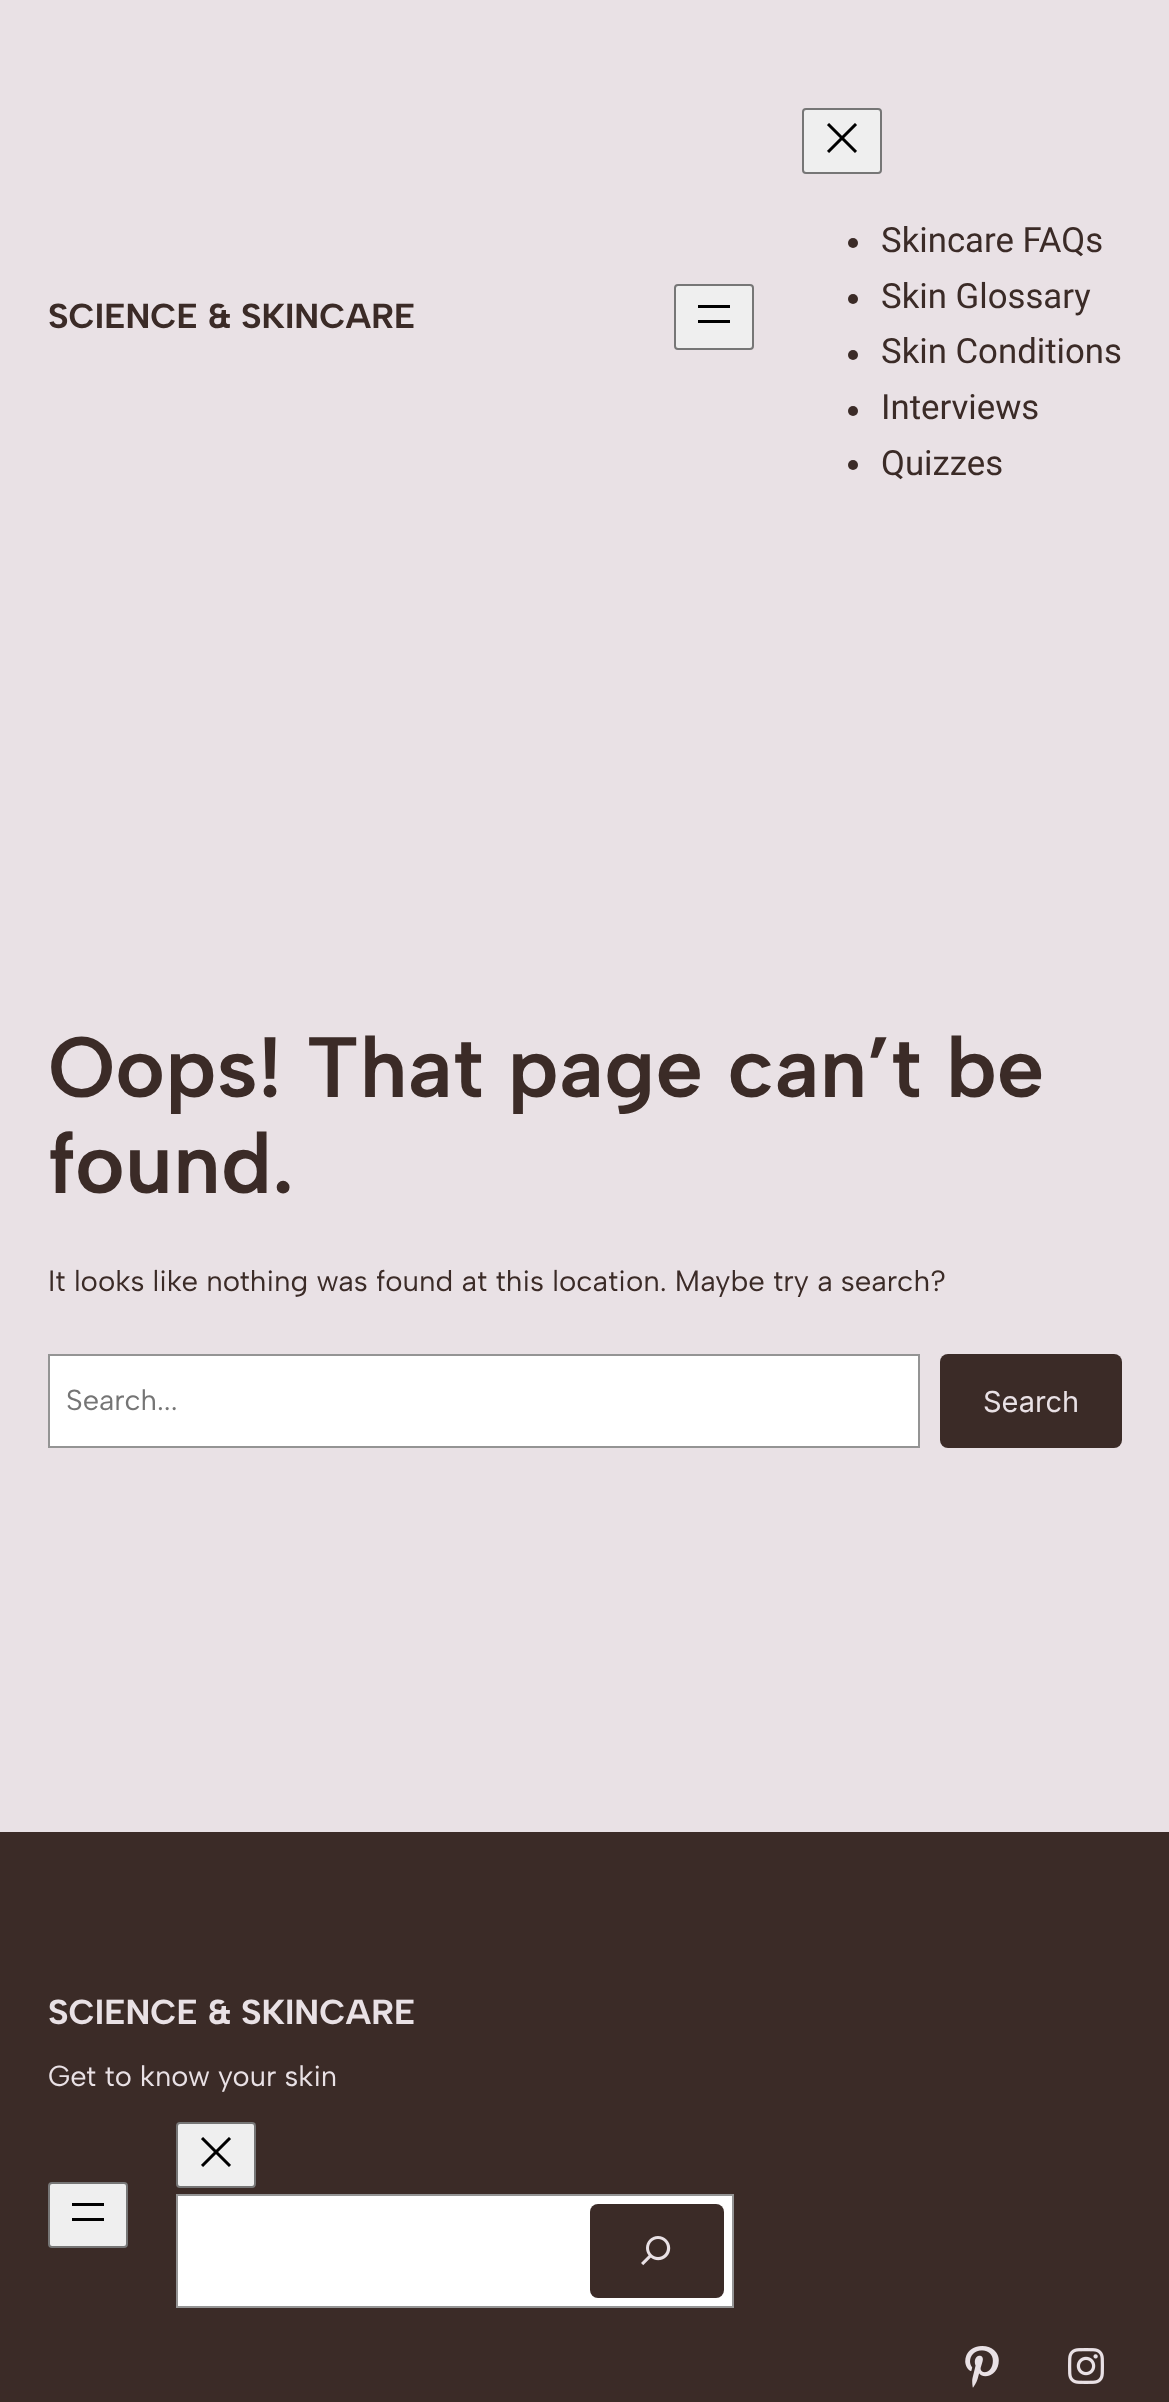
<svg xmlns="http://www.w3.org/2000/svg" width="1169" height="2402">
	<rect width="100%" height="100%" fill="#E9E1E5" />
	<text x="48" y="328" font-family="Albert Sans" font-size="34.75" font-weight="700" fill="#3B2B27">SCIENCE &amp; SKINCARE</text>
	<rect x="675" y="285" width="78" height="64" rx="3" fill="#EFEFEF" stroke="#767676" stroke-width="2" />
	<rect x="698" y="305" width="32" height="3" fill="#000000" />
	<rect x="698" y="320" width="32" height="3" fill="#000000" />
	<rect x="803" y="109" width="78" height="64" rx="3" fill="#EFEFEF" stroke="#767676" stroke-width="2" />
	<image x="827" y="123" width="30" height="30" href="assets/img1.png" />
	<circle cx="853" cy="243" r="5" fill="#3B2B27" />
	<text x="881" y="252" font-family="Roboto" font-size="34.75" fill="#3B2B27">Skincare FAQs</text>
	<circle cx="853" cy="299" r="5" fill="#3B2B27" />
	<text x="881" y="308" font-family="Roboto" font-size="34.75" fill="#3B2B27">Skin Glossary</text>
	<circle cx="853" cy="355" r="5" fill="#3B2B27" />
	<text x="881" y="363" font-family="Roboto" font-size="34.75" fill="#3B2B27">Skin Conditions</text>
	<circle cx="853" cy="411" r="5" fill="#3B2B27" />
	<text x="881" y="419" font-family="Roboto" font-size="34.75" fill="#3B2B27">Interviews</text>
	<circle cx="853" cy="465" r="5" fill="#3B2B27" />
	<text x="881" y="475" font-family="Roboto" font-size="34.75" fill="#3B2B27">Quizzes</text>
	<g font-family="Albert Sans" font-size="85.5" font-weight="600" fill="#3B2B27">
		<text x="48" y="1097">Oops! That page can’t be</text>
		<text x="48" y="1193">found.</text>
	</g>
	<text x="48" y="1291" font-family="Albert Sans" font-size="29.35" fill="#3B2B27">It looks like nothing was found at this location. Maybe try a search?</text>
	<rect x="49" y="1355" width="870" height="92" fill="#FFFFFF" stroke="#949494" stroke-width="2" />
	<text x="66" y="1410" font-family="Albert Sans" font-size="29" fill="#757575">Search...</text>
	<rect x="940" y="1354" width="182" height="94" rx="8" fill="#3B2B27" />
	<text x="983" y="1412" font-family="Inter" font-size="29" fill="#E9E1E5">Search</text>
	<rect x="0" y="1832" width="1169" height="570" fill="#3B2B27" />
	<text x="48" y="2024" font-family="Albert Sans" font-size="34.75" font-weight="700" fill="#E9E1E5">SCIENCE &amp; SKINCARE</text>
	<text x="48" y="2086" font-family="Albert Sans" font-size="29" fill="#E9E1E5">Get to know your skin</text>
	<rect x="49" y="2183" width="78" height="64" rx="3" fill="#EFEFEF" stroke="#767676" stroke-width="2" />
	<rect x="72" y="2203" width="32" height="3" fill="#000000" />
	<rect x="72" y="2218" width="32" height="3" fill="#000000" />
	<rect x="177" y="2123" width="78" height="64" rx="3" fill="#EFEFEF" stroke="#767676" stroke-width="2" />
	<image x="201" y="2137" width="30" height="30" href="assets/img1.png" />
	<rect x="177" y="2195" width="556" height="112" fill="#FFFFFF" stroke="#949494" stroke-width="2" />
	<rect x="590" y="2204" width="134" height="94" rx="8" fill="#3B2B27" />
	<image x="641" y="2236" width="30" height="30" href="assets/img2.png" />
	<image x="965" y="2346" width="34" height="42" href="assets/img3.png" />
	<image x="1068" y="2348" width="36" height="36" href="assets/img4.png" />
</svg>
